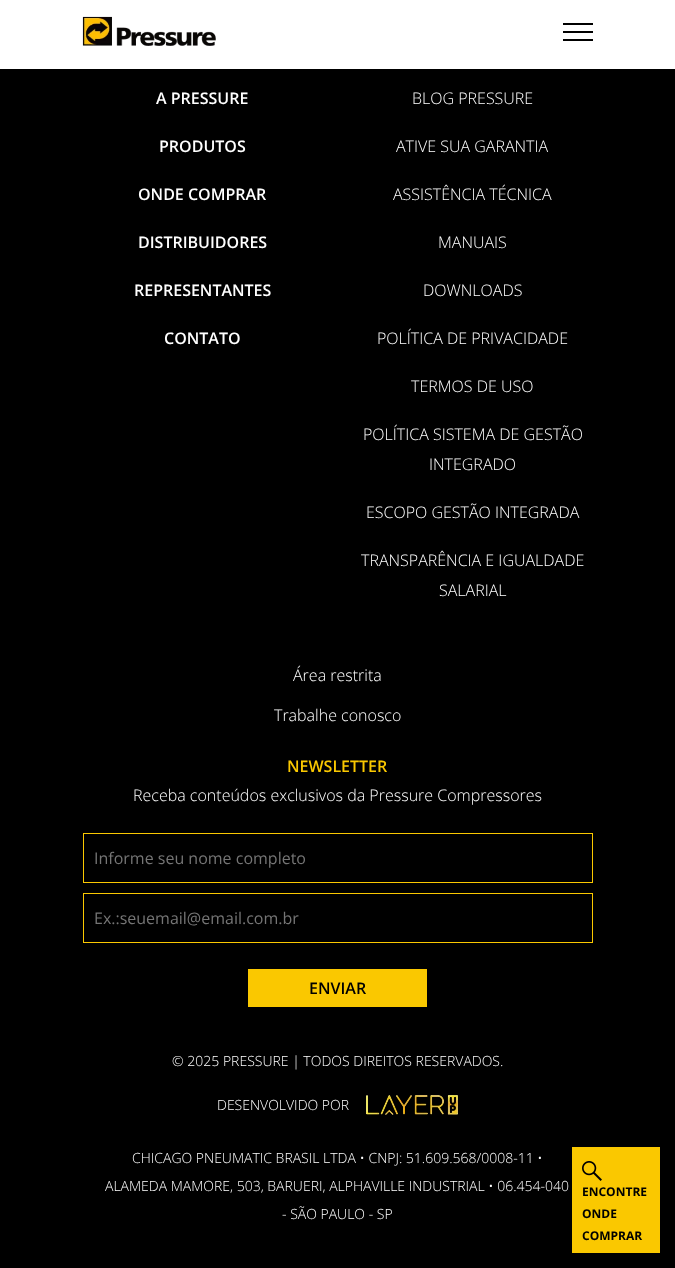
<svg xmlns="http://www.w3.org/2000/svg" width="675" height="1268">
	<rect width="100%" height="100%" fill="#000000" />
	<rect x="0" y="0" width="675" height="69" fill="#FFFFFF" />
	<image x="82" y="16" width="134" height="30" href="assets/img1.png" />
	<rect x="563" y="23" width="30" height="2" fill="#000000" />
	<rect x="563" y="31" width="30" height="2" fill="#000000" />
	<rect x="563" y="39" width="30" height="2" fill="#000000" />
	<g font-family="Open Sans" font-size="16" font-weight="600" fill="#FFFFFF">
		<text x="156" y="104">A PRESSURE</text>
		<text x="159" y="152">PRODUTOS</text>
		<text x="138" y="200">ONDE COMPRAR</text>
		<text x="138" y="248">DISTRIBUIDORES</text>
		<text x="134" y="296">REPRESENTANTES</text>
		<text x="164" y="344">CONTATO</text>
	</g>
	<g font-family="Open Sans" font-size="16" font-weight="300" fill="#FFFFFF">
		<text x="412" y="104">BLOG PRESSURE</text>
		<text x="396" y="152">ATIVE SUA GARANTIA</text>
		<text x="393" y="200">ASSISTÊNCIA TÉCNICA</text>
		<text x="438" y="248">MANUAIS</text>
		<text x="423" y="296">DOWNLOADS</text>
		<text x="377" y="344">POLÍTICA DE PRIVACIDADE</text>
		<text x="411" y="392">TERMOS DE USO</text>
		<text x="363" y="440">POLÍTICA SISTEMA DE GESTÃO</text>
		<text x="429" y="470">INTEGRADO</text>
		<text x="366" y="518">ESCOPO GESTÃO INTEGRADA</text>
		<text x="361" y="566">TRANSPARÊNCIA E IGUALDADE</text>
		<text x="439" y="596">SALARIAL</text>
		<text x="293" y="681">Área restrita</text>
		<text x="274" y="721">Trabalhe conosco</text>
	</g>
	<text x="287" y="772" font-family="Open Sans" font-size="16" font-weight="600" fill="#FAC800">NEWSLETTER</text>
	<text x="133" y="801" font-family="Open Sans" font-size="16" font-weight="300" fill="#FFFFFF">Receba conteúdos exclusivos da Pressure Compressores</text>
	<rect x="83.5" y="833.5" width="509" height="49" fill="none" stroke="#FAC800" />
	<text x="94" y="864" font-family="Open Sans" font-size="16" fill="#757575">Informe seu nome completo</text>
	<rect x="83.5" y="893.5" width="509" height="49" fill="none" stroke="#FAC800" />
	<text x="94" y="924" font-family="Open Sans" font-size="16" fill="#757575">Ex.:seuemail@email.com.br</text>
	<rect x="248" y="969" width="179" height="38" fill="#FAC800" />
	<text x="309" y="994" font-family="Open Sans" font-size="16" font-weight="600" fill="#000000">ENVIAR</text>
	<g font-family="Open Sans" font-size="14" font-weight="300" fill="#FFFFFF">
		<text x="172" y="1066">© 2025 PRESSURE | TODOS DIREITOS RESERVADOS.</text>
		<text x="217" y="1110">DESENVOLVIDO POR</text>
	</g>
	<image x="366" y="1095" width="92" height="20" href="assets/img2.png" />
	<g font-family="Open Sans" font-size="14" font-weight="300" fill="#FFFFFF">
		<text x="132" y="1163">CHICAGO PNEUMATIC BRASIL LTDA • CNPJ: 51.609.568/0008-11 •</text>
		<text x="105" y="1191">ALAMEDA MAMORE, 503, BARUERI, ALPHAVILLE INDUSTRIAL • 06.454-040</text>
		<text x="282" y="1219">- SÃO PAULO - SP</text>
	</g>
	<rect x="572" y="1147" width="88" height="106" fill="#FAC800" />
	<image x="582" y="1161" width="20" height="20" href="assets/img3.png" />
	<g font-family="Open Sans" font-size="12" font-weight="700" fill="#000000">
		<text x="582" y="1196">ENCONTRE</text>
		<text x="582" y="1218">ONDE</text>
		<text x="582" y="1240">COMPRAR</text>
	</g>
</svg>
